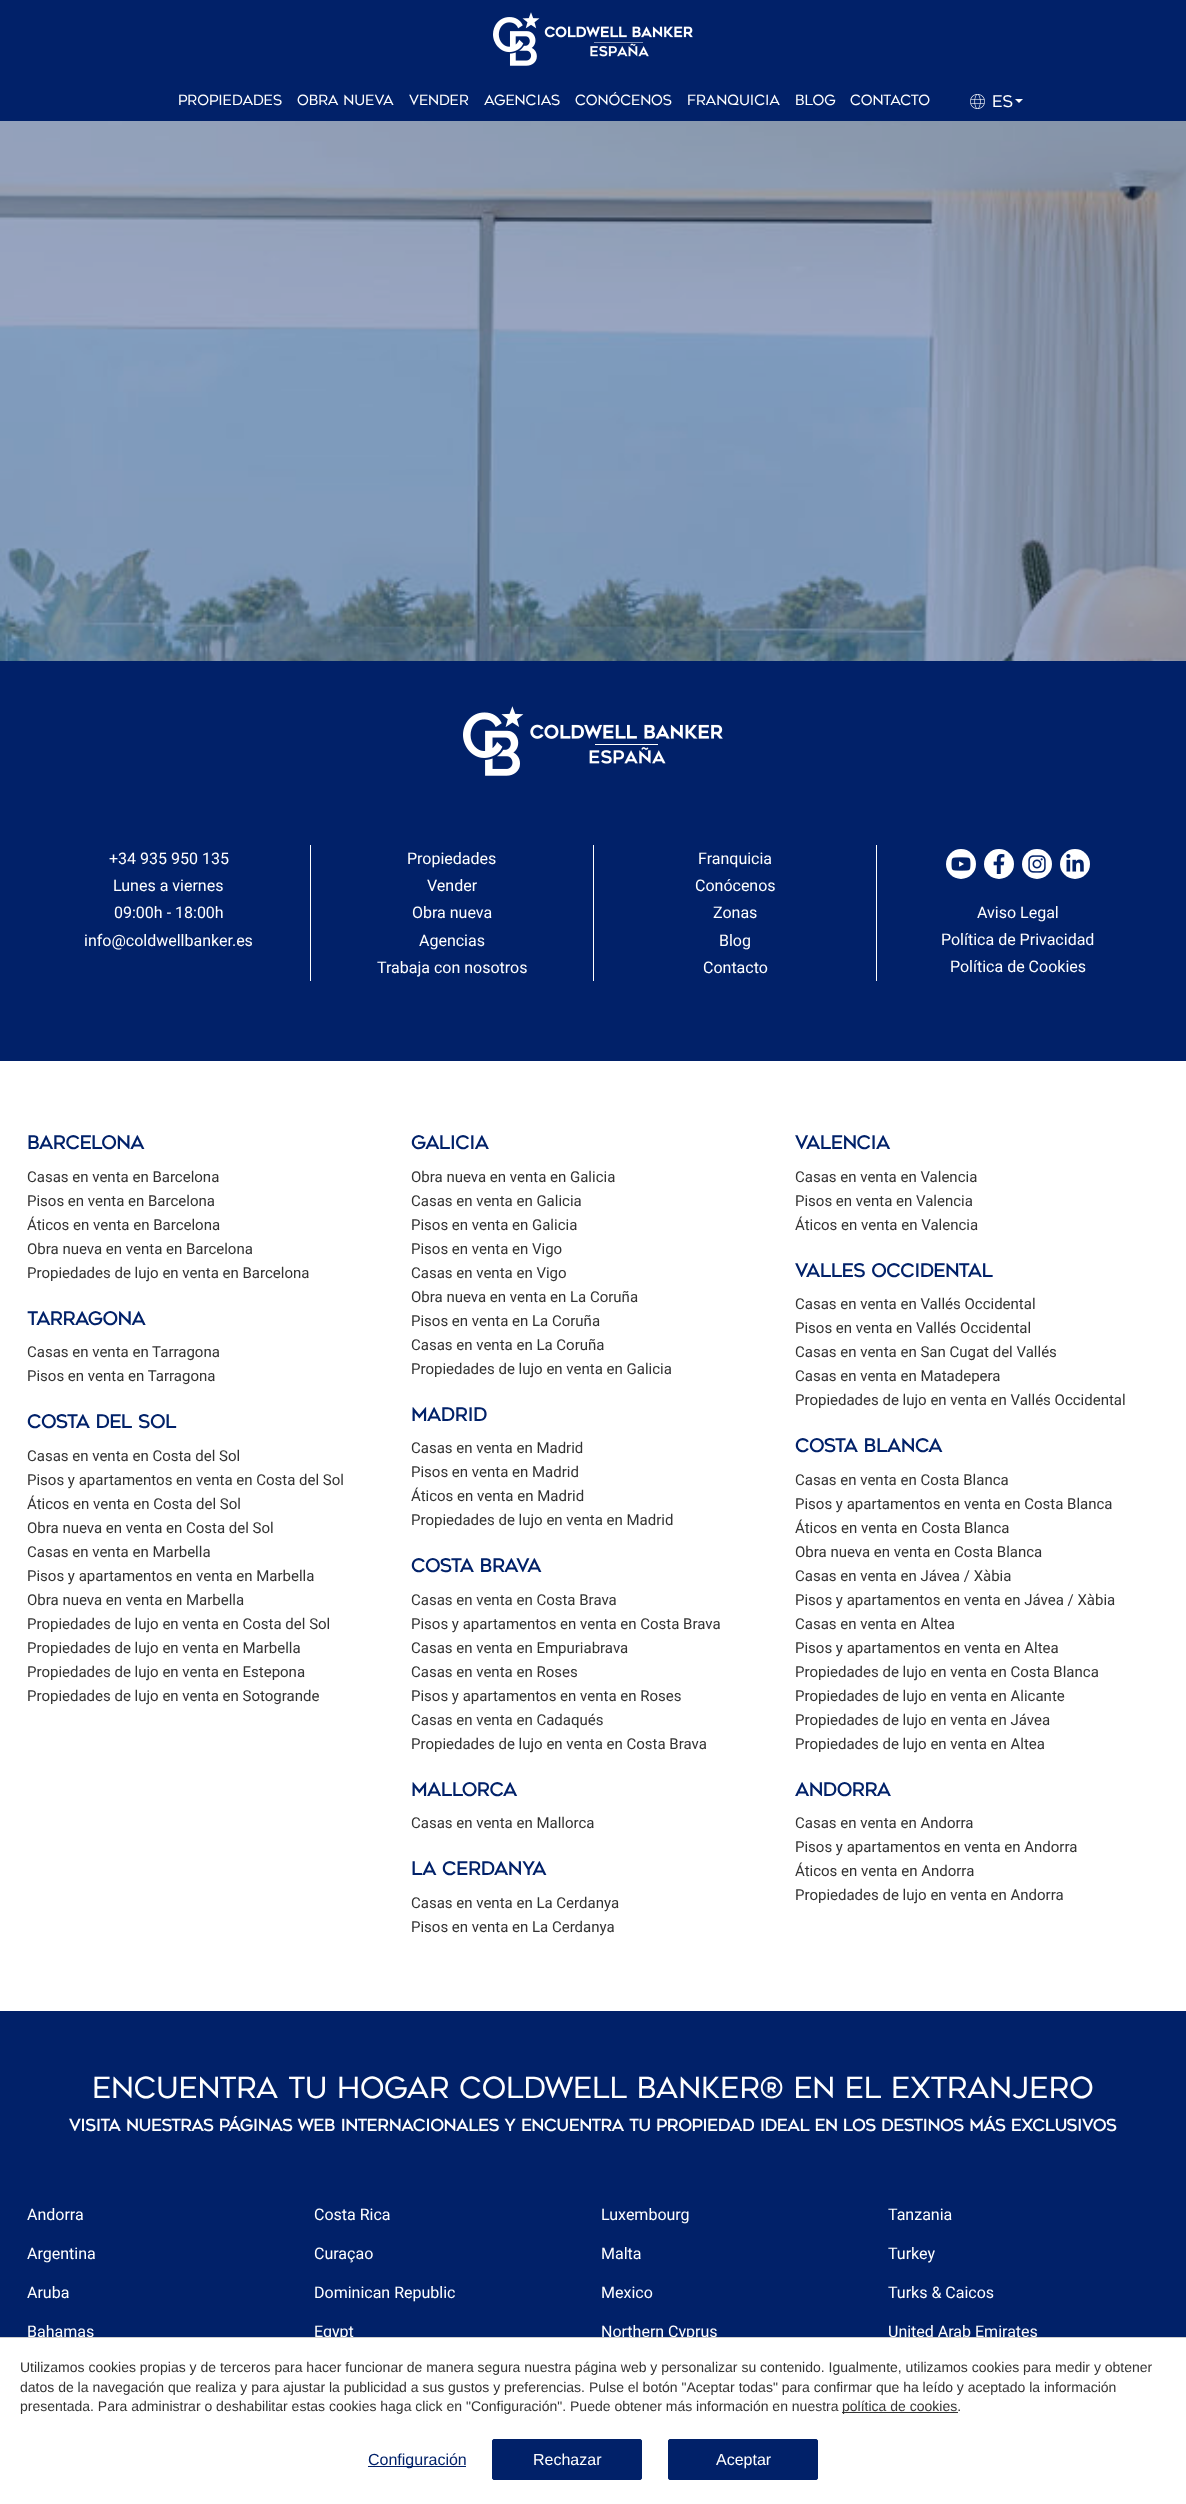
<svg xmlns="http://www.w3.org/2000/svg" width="1186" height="2504">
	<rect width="100%" height="100%" fill="#FFFFFF" />
	<rect x="0" y="0" width="1186" height="121" fill="#012169" />
	<image x="493" y="12" width="200" height="54" href="assets/img1.png" />
	<g font-family="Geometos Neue" font-size="14" fill="#FFFFFF">
		<text x="178" y="105">Propiedades</text>
		<text x="297" y="105">Obra nueva</text>
		<text x="409" y="105">Vender</text>
		<text x="484" y="105">Agencias</text>
		<text x="575" y="105">Conócenos</text>
		<text x="687" y="105">Franquicia</text>
		<text x="795" y="105">Blog</text>
		<text x="850" y="105">Contacto</text>
	</g>
	<image x="970" y="94" width="15" height="15" href="assets/img2.png" />
	<text x="992" y="107" font-family="Geometos Neue" font-size="16" fill="#FFFFFF">ES</text>
	<path d="M1015 99H1023L1019 103Z" fill="#FFFFFF" />
	<image x="0" y="121" width="1186" height="540" href="assets/img3.png" />
	<rect x="0" y="661" width="1186" height="400" fill="#012169" />
	<image x="463" y="706" width="260" height="70" href="assets/img4.png" />
	<g font-family="Roboto" font-size="16" fill="#FFFFFF">
		<text x="109" y="864">+34 935 950 135</text>
		<text x="113" y="891">Lunes a viernes</text>
		<text x="114" y="918">09:00h - 18:00h</text>
		<text x="84" y="946">info@coldwellbanker.es</text>
	</g>
	<rect x="310" y="845" width="1" height="136" fill="#FFFFFF" />
	<g font-family="Roboto" font-size="16" fill="#FFFFFF">
		<text x="407" y="864">Propiedades</text>
		<text x="427" y="891">Vender</text>
		<text x="412" y="918">Obra nueva</text>
		<text x="419" y="946">Agencias</text>
		<text x="377" y="973">Trabaja con nosotros</text>
	</g>
	<rect x="593" y="845" width="1" height="136" fill="#FFFFFF" />
	<g font-family="Roboto" font-size="16" fill="#FFFFFF">
		<text x="698" y="864">Franquicia</text>
		<text x="695" y="891">Conócenos</text>
		<text x="713" y="918">Zonas</text>
		<text x="719" y="946">Blog</text>
		<text x="703" y="973">Contacto</text>
	</g>
	<rect x="876" y="845" width="1" height="136" fill="#FFFFFF" />
	<circle cx="961" cy="864" r="15" fill="#FFFFFF" />
	<image x="951" y="857" width="20" height="14" href="assets/img5.png" />
	<circle cx="999" cy="864" r="15" fill="#FFFFFF" />
	<image x="993" y="854" width="12" height="20" href="assets/img6.png" />
	<circle cx="1037" cy="864" r="15" fill="#FFFFFF" />
	<image x="1028" y="855" width="18" height="18" href="assets/img7.png" />
	<circle cx="1075" cy="864" r="15" fill="#FFFFFF" />
	<image x="1066" y="854" width="18" height="18" href="assets/img8.png" />
	<g font-family="Roboto" font-size="16" fill="#FFFFFF">
		<text x="977" y="918">Aviso Legal</text>
		<text x="941" y="945">Política de Privacidad</text>
		<text x="950" y="972">Política de Cookies</text>
	</g>
	<text x="27" y="1149" font-family="Geometos Neue" font-size="18" font-weight="700" fill="#012169">barcelona</text>
	<g font-family="Roboto" font-size="15" fill="#333333">
		<text x="27" y="1182">Casas en venta en Barcelona</text>
		<text x="27" y="1206">Pisos en venta en Barcelona</text>
		<text x="27" y="1230">Áticos en venta en Barcelona</text>
		<text x="27" y="1254">Obra nueva en venta en Barcelona</text>
		<text x="27" y="1278">Propiedades de lujo en venta en Barcelona</text>
	</g>
	<text x="411" y="1149" font-family="Geometos Neue" font-size="18" font-weight="700" fill="#012169">Galicia</text>
	<g font-family="Roboto" font-size="15" fill="#333333">
		<text x="411" y="1182">Obra nueva en venta en Galicia</text>
		<text x="411" y="1206">Casas en venta en Galicia</text>
		<text x="411" y="1230">Pisos en venta en Galicia</text>
		<text x="411" y="1254">Pisos en venta en Vigo</text>
		<text x="411" y="1278">Casas en venta en Vigo</text>
		<text x="411" y="1302">Obra nueva en venta en La Coruña</text>
		<text x="411" y="1326">Pisos en venta en La Coruña</text>
		<text x="411" y="1350">Casas en venta en La Coruña</text>
		<text x="411" y="1374">Propiedades de lujo en venta en Galicia</text>
	</g>
	<text x="795" y="1149" font-family="Geometos Neue" font-size="18" font-weight="700" fill="#012169">valencia</text>
	<g font-family="Roboto" font-size="15" fill="#333333">
		<text x="795" y="1182">Casas en venta en Valencia</text>
		<text x="795" y="1206">Pisos en venta en Valencia</text>
		<text x="795" y="1230">Áticos en venta en Valencia</text>
	</g>
	<text x="27" y="1325" font-family="Geometos Neue" font-size="18" font-weight="700" fill="#012169">Tarragona</text>
	<g font-family="Roboto" font-size="15" fill="#333333">
		<text x="27" y="1357">Casas en venta en Tarragona</text>
		<text x="27" y="1381">Pisos en venta en Tarragona</text>
	</g>
	<text x="795" y="1277" font-family="Geometos Neue" font-size="18" font-weight="700" fill="#012169">valles occidental</text>
	<g font-family="Roboto" font-size="15" fill="#333333">
		<text x="795" y="1309">Casas en venta en Vallés Occidental</text>
		<text x="795" y="1333">Pisos en venta en Vallés Occidental</text>
		<text x="795" y="1357">Casas en venta en San Cugat del Vallés</text>
		<text x="795" y="1381">Casas en venta en Matadepera</text>
		<text x="795" y="1405">Propiedades de lujo en venta en Vallés Occidental</text>
	</g>
	<text x="27" y="1428" font-family="Geometos Neue" font-size="18" font-weight="700" fill="#012169">Costa del sol</text>
	<g font-family="Roboto" font-size="15" fill="#333333">
		<text x="27" y="1461">Casas en venta en Costa del Sol</text>
		<text x="27" y="1485">Pisos y apartamentos en venta en Costa del Sol</text>
		<text x="27" y="1509">Áticos en venta en Costa del Sol</text>
		<text x="27" y="1533">Obra nueva en venta en Costa del Sol</text>
		<text x="27" y="1557">Casas en venta en Marbella</text>
		<text x="27" y="1581">Pisos y apartamentos en venta en Marbella</text>
		<text x="27" y="1605">Obra nueva en venta en Marbella</text>
		<text x="27" y="1629">Propiedades de lujo en venta en Costa del Sol</text>
		<text x="27" y="1653">Propiedades de lujo en venta en Marbella</text>
		<text x="27" y="1677">Propiedades de lujo en venta en Estepona</text>
		<text x="27" y="1701">Propiedades de lujo en venta en Sotogrande</text>
	</g>
	<text x="411" y="1421" font-family="Geometos Neue" font-size="18" font-weight="700" fill="#012169">Madrid</text>
	<g font-family="Roboto" font-size="15" fill="#333333">
		<text x="411" y="1453">Casas en venta en Madrid</text>
		<text x="411" y="1477">Pisos en venta en Madrid</text>
		<text x="411" y="1501">Áticos en venta en Madrid</text>
		<text x="411" y="1525">Propiedades de lujo en venta en Madrid</text>
	</g>
	<text x="795" y="1452" font-family="Geometos Neue" font-size="18" font-weight="700" fill="#012169">Costa Blanca</text>
	<g font-family="Roboto" font-size="15" fill="#333333">
		<text x="795" y="1485">Casas en venta en Costa Blanca</text>
		<text x="795" y="1509">Pisos y apartamentos en venta en Costa Blanca</text>
		<text x="795" y="1533">Áticos en venta en Costa Blanca</text>
		<text x="795" y="1557">Obra nueva en venta en Costa Blanca</text>
		<text x="795" y="1581">Casas en venta en Jávea / Xàbia</text>
		<text x="795" y="1605">Pisos y apartamentos en venta en Jávea / Xàbia</text>
		<text x="795" y="1629">Casas en venta en Altea</text>
		<text x="795" y="1653">Pisos y apartamentos en venta en Altea</text>
		<text x="795" y="1677">Propiedades de lujo en venta en Costa Blanca</text>
		<text x="795" y="1701">Propiedades de lujo en venta en Alicante</text>
		<text x="795" y="1725">Propiedades de lujo en venta en Jávea</text>
		<text x="795" y="1749">Propiedades de lujo en venta en Altea</text>
	</g>
	<text x="411" y="1572" font-family="Geometos Neue" font-size="18" font-weight="700" fill="#012169">Costa brava</text>
	<g font-family="Roboto" font-size="15" fill="#333333">
		<text x="411" y="1605">Casas en venta en Costa Brava</text>
		<text x="411" y="1629">Pisos y apartamentos en venta en Costa Brava</text>
		<text x="411" y="1653">Casas en venta en Empuriabrava</text>
		<text x="411" y="1677">Casas en venta en Roses</text>
		<text x="411" y="1701">Pisos y apartamentos en venta en Roses</text>
		<text x="411" y="1725">Casas en venta en Cadaqués</text>
		<text x="411" y="1749">Propiedades de lujo en venta en Costa Brava</text>
	</g>
	<text x="411" y="1796" font-family="Geometos Neue" font-size="18" font-weight="700" fill="#012169">Mallorca</text>
	<text x="411" y="1828" font-family="Roboto" font-size="15" fill="#333333">Casas en venta en Mallorca</text>
	<text x="795" y="1796" font-family="Geometos Neue" font-size="18" font-weight="700" fill="#012169">Andorra</text>
	<g font-family="Roboto" font-size="15" fill="#333333">
		<text x="795" y="1828">Casas en venta en Andorra</text>
		<text x="795" y="1852">Pisos y apartamentos en venta en Andorra</text>
		<text x="795" y="1876">Áticos en venta en Andorra</text>
		<text x="795" y="1900">Propiedades de lujo en venta en Andorra</text>
	</g>
	<text x="411" y="1875" font-family="Geometos Neue" font-size="18" font-weight="700" fill="#012169">La Cerdanya</text>
	<g font-family="Roboto" font-size="15" fill="#333333">
		<text x="411" y="1908">Casas en venta en La Cerdanya</text>
		<text x="411" y="1932">Pisos en venta en La Cerdanya</text>
	</g>
	<rect x="0" y="2011" width="1186" height="326" fill="#012169" />
	<text x="92" y="2098" font-family="Geometos Neue" font-size="29" fill="#FFFFFF">Encuentra Tu Hogar Coldwell Banker® En El Extranjero</text>
	<text x="69" y="2131" font-family="Geometos Neue" font-size="16" font-weight="700" fill="#FFFFFF">Visita nuestras páginas web internacionales y encuentra tu propiedad ideal en los destinos más exclusivos</text>
	<g font-family="Roboto" font-size="16" fill="#FFFFFF">
		<text x="27" y="2220">Andorra</text>
		<text x="314" y="2220">Costa Rica</text>
		<text x="601" y="2220">Luxembourg</text>
		<text x="888" y="2220">Tanzania</text>
		<text x="27" y="2259">Argentina</text>
		<text x="314" y="2259">Curaçao</text>
		<text x="601" y="2259">Malta</text>
		<text x="888" y="2259">Turkey</text>
		<text x="27" y="2298">Aruba</text>
		<text x="314" y="2298">Dominican Republic</text>
		<text x="601" y="2298">Mexico</text>
		<text x="888" y="2298">Turks &amp; Caicos</text>
		<text x="27" y="2337">Bahamas</text>
		<text x="314" y="2337">Egypt</text>
		<text x="601" y="2337">Northern Cyprus</text>
		<text x="888" y="2337">United Arab Emirates</text>
	</g>
	<rect x="0" y="2337" width="1186" height="1" fill="#CCCCCC" />
	<g font-family="Liberation Sans" font-size="14" fill="#333333">
		<text x="20" y="2372">Utilizamos cookies propias y de terceros para hacer funcionar de manera segura nuestra página web y personalizar su contenido. Igualmente, utilizamos cookies para medir y obtener</text>
		<text x="20" y="2392">datos de la navegación que realiza y para ajustar la publicidad a sus gustos y preferencias. Pulse el botón "Aceptar todas" para confirmar que ha leído y aceptado la información</text>
		<text x="20" y="2411">presentada. Para administrar o deshabilitar estas cookies haga click en "Configuración". Puede obtener más información en nuestra</text>
	</g>
	<rect x="842" y="2412" width="116" height="1" fill="#333333" />
	<text x="842" y="2411" font-family="Liberation Sans" font-size="14" fill="#333333">política de cookies.</text>
	<rect x="368" y="2466" width="98" height="1" fill="#012169" />
	<text x="368" y="2465" font-family="Liberation Sans" font-size="16" fill="#012169">Configuración</text>
	<rect x="492.5" y="2439.5" width="149" height="40" rx="1.5" fill="#012169" stroke="#012169" />
	<text x="533" y="2465" font-family="Liberation Sans" font-size="16" fill="#FFFFFF">Rechazar</text>
	<rect x="668.5" y="2439.5" width="149" height="40" rx="1.5" fill="#012169" stroke="#012169" />
	<text x="716" y="2465" font-family="Liberation Sans" font-size="16" fill="#FFFFFF">Aceptar</text>
</svg>
